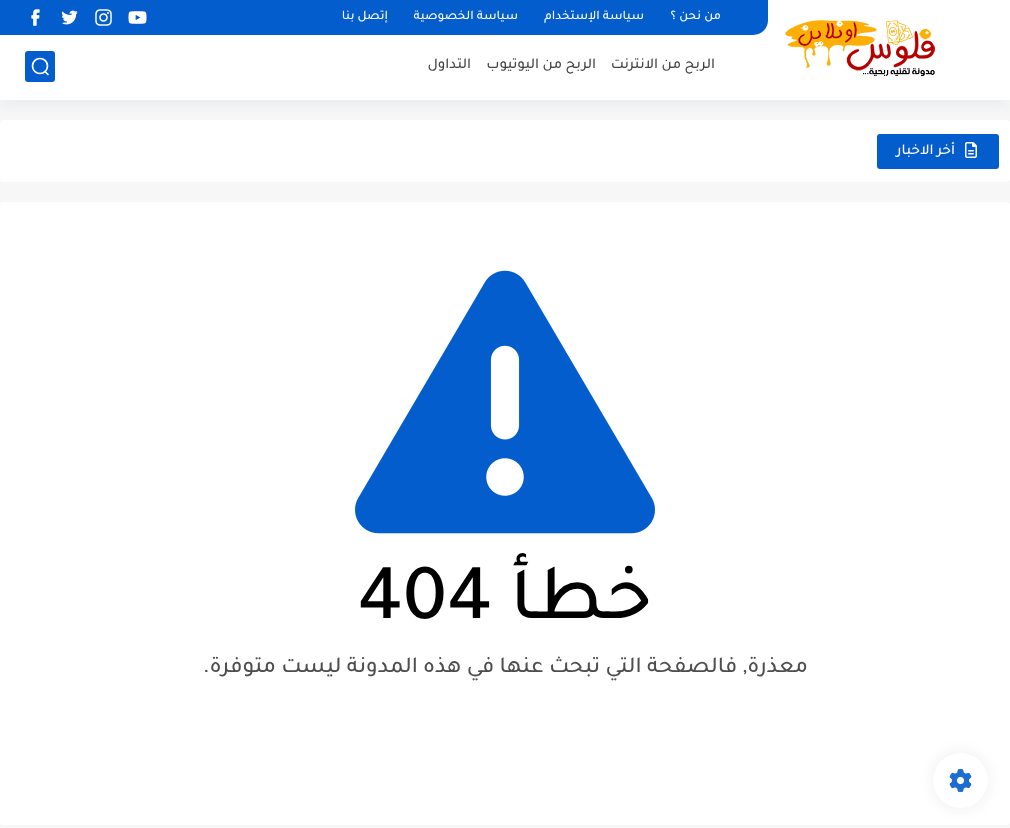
<svg xmlns="http://www.w3.org/2000/svg" width="1010" height="828">
	<rect width="100%" height="100%" fill="#F7F7F7" />
	<rect x="0" y="120" width="1010" height="62" rx="3" fill="#FFFFFF" />
	<rect x="0" y="6" width="1010" height="100" fill="#09204C" fill-opacity="0.05" filter="blur(7px)" />
	<rect x="0" y="0" width="1010" height="100" fill="#FFFFFF" />
	<path d="M-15 0H768V20C768 28.5 761.5 35 753 35H0C-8.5 35-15 28.5-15 20Z" fill="#035DCD" />
	<g font-family="Tajawal" font-size="13" font-weight="500" direction="rtl" fill="#FFFFFF">
		<text x="721" y="19">من نحن ؟</text>
		<text x="644" y="19">سياسة الإستخدام</text>
		<text x="518" y="19">سياسة الخصوصية</text>
		<text x="388" y="19">إتصل بنا</text>
	</g>
	<image x="128" y="11" width="19" height="13" href="assets/img1.png" />
	<image x="95" y="9" width="17" height="17" href="assets/img2.png" />
	<image x="61" y="10" width="17" height="15" href="assets/img3.png" />
	<image x="31" y="9" width="9" height="17" href="assets/img4.png" />
	<image x="785" y="20" width="150" height="56" href="assets/img5.png" />
	<g font-family="Tajawal" font-size="15" font-weight="500" direction="rtl" fill="#444444">
		<text x="715" y="68">الربح من الانترنت</text>
		<text x="596" y="68">الربح من اليوتيوب</text>
		<text x="471" y="68">التداول</text>
	</g>
	<rect x="25" y="51" width="30" height="31" rx="3" fill="#035DCD" />
	<circle cx="40" cy="66" r="7.5" fill="none" stroke="#FFFFFF" stroke-width="1.7" />
	<path d="M45 71.5L48 74.5" fill="none" stroke="#FFFFFF" stroke-width="1.7" stroke-linecap="round" stroke-linejoin="round" />
	<rect x="877" y="134" width="122" height="35" rx="3" fill="#035DCD" />
	<image x="965" y="142" width="12" height="16" href="assets/img6.png" />
	<text x="955" y="154" font-family="Tajawal" font-size="15" font-weight="500" direction="rtl" fill="#FFFFFF">أخر الاخبار</text>
	<rect x="0" y="202" width="1010" height="623" rx="3" fill="#FFFFFF" />
	<image x="355" y="270" width="300" height="264" href="assets/img7.png" />
	<text x="652" y="618" font-family="Tajawal" font-size="80" font-weight="500" direction="rtl" fill="#000000">خطأ</text>
	<text x="358" y="618" font-family="Tajawal" font-size="80" font-weight="500" fill="#000000">404</text>
	<text x="808" y="672" font-family="Tajawal" font-size="23" font-weight="500" direction="rtl" fill="#4E4E4E">معذرة, فالصفحة التي تبحث عنها في هذه المدونة ليست متوفرة.</text>
	<rect x="933" y="753" width="55" height="55" rx="27.5" fill="#1A1A1A" fill-opacity="0.08" filter="blur(7.5px)" />
	<circle cx="960.5" cy="780.5" r="27.5" fill="#FFFFFF" />
	<image x="949" y="769" width="23" height="23" href="assets/img8.png" />
</svg>
